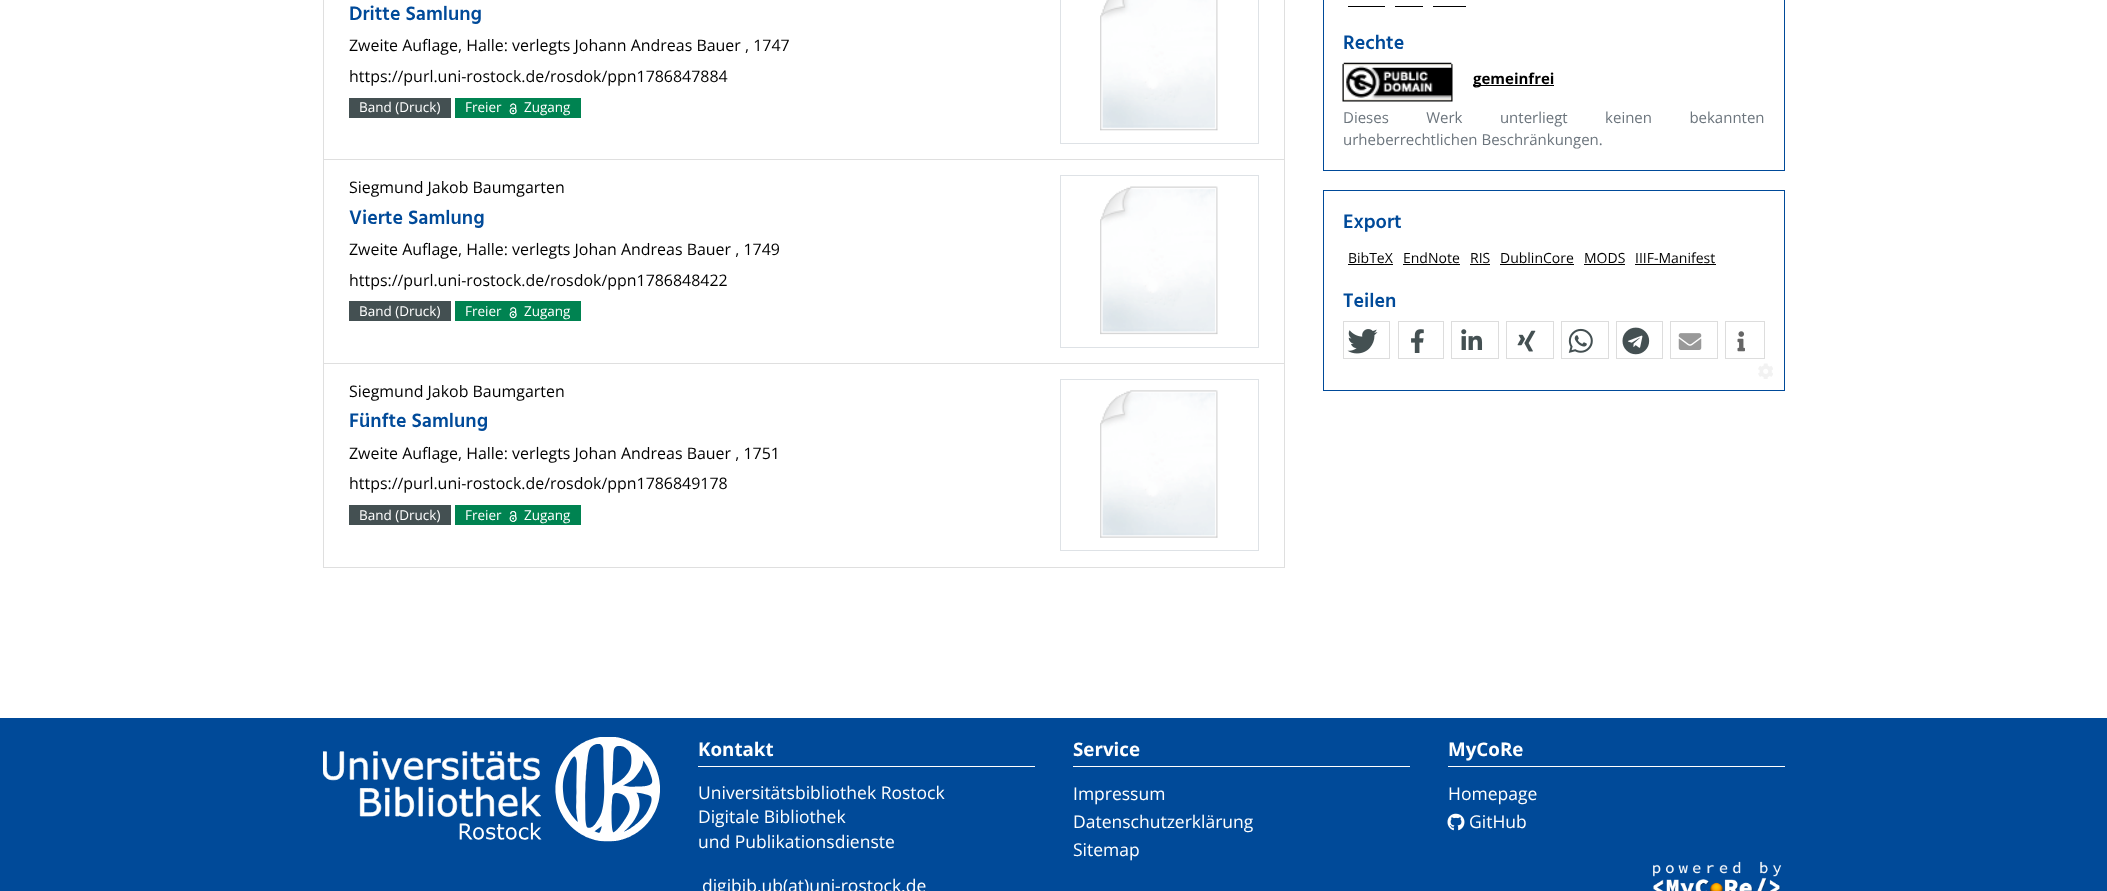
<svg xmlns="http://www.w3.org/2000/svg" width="2107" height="891">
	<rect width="100%" height="100%" fill="#FFFFFF" />
	<rect x="323.5" y="-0.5" width="961" height="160" fill="none" stroke="#DFDFDF" />
	<text x="349" y="20" font-family="Hind" font-size="20" font-weight="600" fill="#004A99">Dritte Samlung</text>
	<g font-family="Open Sans" font-size="15.95" fill="#000000">
		<text x="349" y="51">Zweite Auflage, Halle: verlegts Johann Andreas Bauer , 1747</text>
		<text x="349" y="82">https://purl.uni-rostock.de/rosdok/ppn1786847884</text>
	</g>
	<rect x="349" y="98" width="102" height="20" fill="#445052" />
	<text x="359" y="112" font-family="Open Sans" font-size="13.5" fill="#FFFFFF">Band (Druck)</text>
	<rect x="455" y="98" width="126" height="20" fill="#008351" />
	<text x="465" y="112" font-family="Open Sans" font-size="13.5" fill="#FFFFFF">Freier</text>
	<image x="509" y="103" width="8" height="12" href="assets/img1.png" />
	<text x="524" y="112" font-family="Open Sans" font-size="13.5" fill="#FFFFFF">Zugang</text>
	<rect x="1060.5" y="-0.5" width="198" height="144" fill="none" stroke="#DEE2E6" />
	<image x="1100" y="0" width="118" height="131" href="assets/img2.png" />
	<rect x="323.5" y="159.5" width="961" height="204" fill="none" stroke="#DFDFDF" />
	<text x="349" y="193" font-family="Open Sans" font-size="15.95" fill="#000000">Siegmund Jakob Baumgarten</text>
	<text x="349" y="224" font-family="Hind" font-size="20" font-weight="600" fill="#004A99">Vierte Samlung</text>
	<g font-family="Open Sans" font-size="15.95" fill="#000000">
		<text x="349" y="255">Zweite Auflage, Halle: verlegts Johan Andreas Bauer , 1749</text>
		<text x="349" y="286">https://purl.uni-rostock.de/rosdok/ppn1786848422</text>
	</g>
	<rect x="349" y="301" width="102" height="20" fill="#445052" />
	<text x="359" y="316" font-family="Open Sans" font-size="13.5" fill="#FFFFFF">Band (Druck)</text>
	<rect x="455" y="301" width="126" height="20" fill="#008351" />
	<text x="465" y="316" font-family="Open Sans" font-size="13.5" fill="#FFFFFF">Freier</text>
	<image x="509" y="307" width="8" height="12" href="assets/img3.png" />
	<text x="524" y="316" font-family="Open Sans" font-size="13.5" fill="#FFFFFF">Zugang</text>
	<rect x="1060.5" y="175.5" width="198" height="172" fill="none" stroke="#DEE2E6" />
	<image x="1100" y="186" width="118" height="149" href="assets/img4.png" />
	<rect x="323.5" y="363.5" width="961" height="204" fill="none" stroke="#DFDFDF" />
	<text x="349" y="397" font-family="Open Sans" font-size="15.95" fill="#000000">Siegmund Jakob Baumgarten</text>
	<text x="349" y="427" font-family="Hind" font-size="20" font-weight="600" fill="#004A99">Fünfte Samlung</text>
	<g font-family="Open Sans" font-size="15.95" fill="#000000">
		<text x="349" y="459">Zweite Auflage, Halle: verlegts Johan Andreas Bauer , 1751</text>
		<text x="349" y="489">https://purl.uni-rostock.de/rosdok/ppn1786849178</text>
	</g>
	<rect x="349" y="505" width="102" height="20" fill="#445052" />
	<text x="359" y="520" font-family="Open Sans" font-size="13.5" fill="#FFFFFF">Band (Druck)</text>
	<rect x="455" y="505" width="126" height="20" fill="#008351" />
	<text x="465" y="520" font-family="Open Sans" font-size="13.5" fill="#FFFFFF">Freier</text>
	<image x="509" y="511" width="8" height="11" href="assets/img5.png" />
	<text x="524" y="520" font-family="Open Sans" font-size="13.5" fill="#FFFFFF">Zugang</text>
	<rect x="1060.5" y="379.5" width="198" height="171" fill="none" stroke="#DEE2E6" />
	<image x="1100" y="390" width="118" height="148" href="assets/img6.png" />
	<rect x="1323.5" y="-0.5" width="461" height="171" fill="none" stroke="#004A99" />
	<rect x="1348" y="6" width="37" height="1" fill="#000000" />
	<rect x="1395" y="6" width="28" height="1" fill="#000000" />
	<rect x="1433" y="6" width="33" height="1" fill="#000000" />
	<text x="1343" y="49" font-family="Hind" font-size="20" font-weight="600" fill="#004A99">Rechte</text>
	<image x="1342" y="62" width="111" height="40" href="assets/img7.png" />
	<rect x="1473" y="85" width="81" height="1" fill="#000000" />
	<text x="1473" y="84" font-family="Open Sans" font-size="15" font-weight="700" fill="#000000">gemeinfrei</text>
	<g font-family="Open Sans" font-size="15" fill="#6C757D">
		<text x="1343" y="123" word-spacing="33.5">Dieses Werk unterliegt keinen bekannten</text>
		<text x="1343" y="145">urheberrechtlichen Beschränkungen.</text>
	</g>
	<rect x="1323.5" y="190.5" width="461" height="200" fill="none" stroke="#004A99" />
	<text x="1343" y="228" font-family="Hind" font-size="20" font-weight="600" fill="#004A99">Export</text>
	<text x="1348" y="263" font-family="Open Sans" font-size="14" fill="#000000">BibTeX</text>
	<rect x="1348" y="264" width="45" height="1" fill="#000000" />
	<text x="1403" y="263" font-family="Open Sans" font-size="14" fill="#000000">EndNote</text>
	<rect x="1403" y="264" width="57" height="1" fill="#000000" />
	<text x="1470" y="263" font-family="Open Sans" font-size="14" fill="#000000">RIS</text>
	<rect x="1470" y="264" width="20" height="1" fill="#000000" />
	<text x="1500" y="263" font-family="Open Sans" font-size="14" fill="#000000">DublinCore</text>
	<rect x="1500" y="264" width="74" height="1" fill="#000000" />
	<text x="1584" y="263" font-family="Open Sans" font-size="14" fill="#000000">MODS</text>
	<rect x="1584" y="264" width="41" height="1" fill="#000000" />
	<text x="1635" y="263" font-family="Open Sans" font-size="14" fill="#000000">IIIF-Manifest</text>
	<rect x="1635" y="264" width="81" height="1" fill="#000000" />
	<text x="1343" y="307" font-family="Hind" font-size="20" font-weight="600" fill="#004A99">Teilen</text>
	<rect x="1343.5" y="321.5" width="46" height="37" fill="none" stroke="#DDDDDD" />
	<image x="1347" y="329" width="31" height="25" href="assets/img8.png" />
	<rect x="1398.5" y="321.5" width="45" height="37" fill="none" stroke="#DDDDDD" />
	<image x="1411" y="329" width="13" height="24" href="assets/img9.png" />
	<rect x="1451.5" y="321.5" width="47" height="37" fill="none" stroke="#DDDDDD" />
	<image x="1461" y="329" width="22" height="21" href="assets/img10.png" />
	<rect x="1506.5" y="321.5" width="47" height="37" fill="none" stroke="#DDDDDD" />
	<image x="1517" y="330" width="19" height="22" href="assets/img11.png" />
	<rect x="1561.5" y="321.5" width="47" height="37" fill="none" stroke="#DDDDDD" />
	<image x="1568" y="328" width="25" height="25" href="assets/img12.png" />
	<rect x="1616.5" y="321.5" width="46" height="37" fill="none" stroke="#DDDDDD" />
	<image x="1622" y="327" width="28" height="28" href="assets/img13.png" />
	<rect x="1670.5" y="321.5" width="47" height="37" fill="none" stroke="#DDDDDD" />
	<image x="1678" y="333" width="24" height="17" href="assets/img14.png" />
	<rect x="1725.5" y="321.5" width="39" height="37" fill="none" stroke="#DDDDDD" />
	<image x="1737" y="331" width="8" height="21" href="assets/img15.png" />
	<image x="1758" y="363" width="15" height="16" href="assets/img16.png" />
	<rect x="0" y="718" width="2107" height="173" fill="#004A99" />
	<image x="323" y="737" width="337" height="105" href="assets/img17.png" />
	<rect x="698" y="766" width="337" height="1" fill="#FFFFFF" />
	<text x="698" y="756" font-family="Open Sans" font-size="18.75" font-weight="700" fill="#FFFFFF">Kontakt</text>
	<g font-family="Open Sans" font-size="17.5" fill="#FFFFFF">
		<text x="698" y="799">Universitätsbibliothek Rostock</text>
		<text x="698" y="823">Digitale Bibliothek</text>
		<text x="698" y="848">und Publikationsdienste</text>
		<text x="702" y="892">digibib.ub(at)uni-rostock.de</text>
	</g>
	<rect x="1073" y="766" width="337" height="1" fill="#FFFFFF" />
	<text x="1073" y="756" font-family="Open Sans" font-size="18.75" font-weight="700" fill="#FFFFFF">Service</text>
	<g font-family="Open Sans" font-size="17.5" fill="#FFFFFF">
		<text x="1073" y="800">Impressum</text>
		<text x="1073" y="828">Datenschutzerklärung</text>
		<text x="1073" y="856">Sitemap</text>
	</g>
	<rect x="1448" y="766" width="337" height="1" fill="#FFFFFF" />
	<text x="1448" y="756" font-family="Open Sans" font-size="18.75" font-weight="700" fill="#FFFFFF">MyCoRe</text>
	<text x="1448" y="800" font-family="Open Sans" font-size="17.5" fill="#FFFFFF">Homepage</text>
	<image x="1447" y="813" width="18" height="18" href="assets/img18.png" />
	<text x="1469" y="828" font-family="Open Sans" font-size="17.5" fill="#FFFFFF">GitHub</text>
	<image x="1653" y="861" width="129" height="30" href="assets/img19.png" />
</svg>
